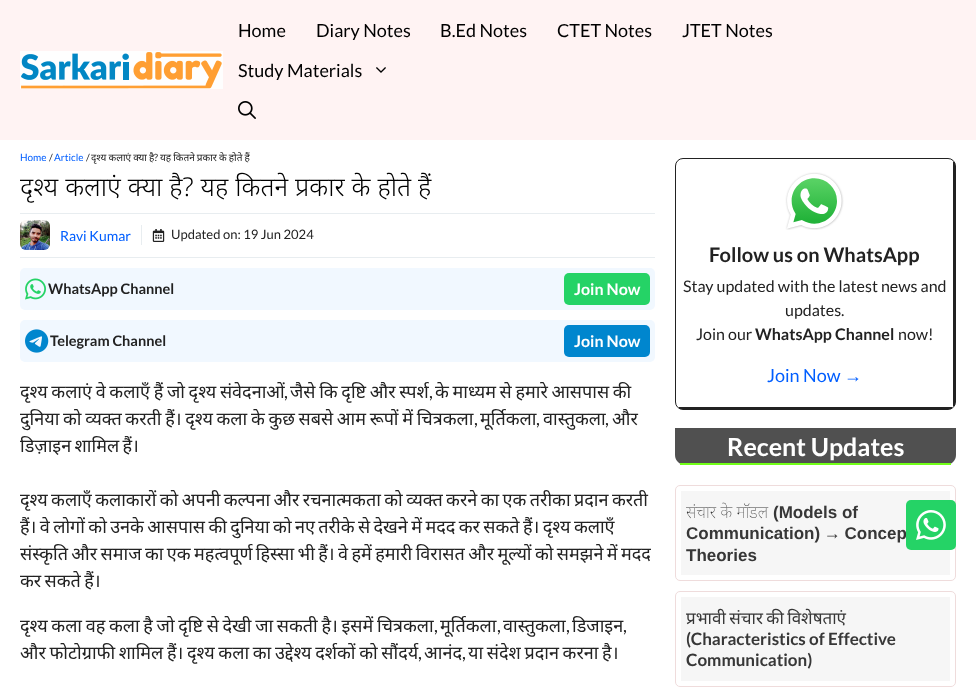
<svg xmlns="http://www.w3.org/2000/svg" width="976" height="687">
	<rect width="100%" height="100%" fill="#FFFFFF" />
	<rect x="0" y="0" width="976" height="140" fill="#FFF3F3" />
	<image x="20" y="51" width="203" height="38" href="assets/img1.png" />
	<g font-family="Lato" font-size="18" fill="#000000">
		<text x="238" y="37">Home</text>
		<text x="316" y="37">Diary Notes</text>
		<text x="440" y="37">B.Ed Notes</text>
		<text x="557" y="37">CTET Notes</text>
		<text x="682" y="37">JTET Notes</text>
		<text x="238" y="77">Study Materials</text>
	</g>
	<image x="376" y="67" width="10" height="6" href="assets/img2.png" />
	<image x="238" y="101" width="18" height="18" href="assets/img3.png" />
	<text x="20" y="161" font-family="Lato" font-size="10" fill="#005EFF">Home</text>
	<text x="49" y="161" font-family="Lato" font-size="10" fill="#222222">/</text>
	<text x="54" y="161" font-family="Lato" font-size="10" fill="#005EFF">Article</text>
	<text x="86" y="161" font-family="Lato" font-size="10" fill="#222222">/</text>
	<text x="91" y="161" word-spacing="-0.5" font-family="Noto Sans" font-size="10" fill="#222222">दृश्य कलाएं क्या है</text>
	<text x="154" y="161" font-family="Lato" font-size="10" fill="#222222">?</text>
	<text x="160" y="161" word-spacing="-0.5" font-family="Noto Sans" font-size="10" fill="#222222">यह कितने प्रकार के होते हैं</text>
	<text x="20" y="196" word-spacing="0.25" font-family="Noto Sans" font-size="26" font-weight="300" fill="#000000">दृश्य कलाएं क्या है? यह कितने प्रकार के होते हैं</text>
	<rect x="20" y="213" width="635" height="1" fill="#E8EDF0" />
	<rect x="20" y="257" width="635" height="1" fill="#E8EDF0" />
	<image x="20" y="220" width="30" height="30" href="assets/img4.png" />
	<text x="60" y="241" font-family="Lato" font-size="14" fill="#005EFF">Ravi Kumar</text>
	<rect x="141" y="225" width="1" height="20" fill="#E8EDF0" />
	<image x="152" y="229" width="13" height="13" href="assets/img5.png" />
	<text x="171" y="239" font-family="Lato" font-size="13" fill="#222222">Updated on: 19 Jun 2024</text>
	<rect x="20" y="268" width="635" height="42" rx="5" fill="#F1F8FF" />
	<image x="25" y="278" width="21" height="22" href="assets/img6.png" />
	<text x="48" y="294" font-family="Lato" font-size="14.5" font-weight="700" fill="#222222">WhatsApp Channel</text>
	<rect x="564" y="273" width="86" height="32" rx="5" fill="#25D366" />
	<text x="574" y="295" font-family="Lato" font-size="16" font-weight="700" fill="#FFFFFF">Join Now</text>
	<rect x="20" y="320" width="635" height="42" rx="5" fill="#F1F8FF" />
	<image x="25" y="329" width="24" height="24" href="assets/img7.png" />
	<text x="50" y="346" font-family="Lato" font-size="14.5" font-weight="700" fill="#222222">Telegram Channel</text>
	<rect x="564" y="325" width="86" height="32" rx="5" fill="#0086CE" />
	<text x="574" y="347" font-family="Lato" font-size="16" font-weight="700" fill="#FFFFFF">Join Now</text>
	<text x="20" y="398" word-spacing="-1" font-family="Noto Sans" font-size="18" fill="#222222">दृश्य कलाएं वे कलाएँ हैं जो दृश्य संवेदनाओं</text>
	<text x="284" y="398" font-family="Lato" font-size="18" fill="#222222">,</text>
	<text x="290" y="398" word-spacing="-1" font-family="Noto Sans" font-size="18" fill="#222222">जैसे कि दृष्टि और स्पर्श</text>
	<text x="429" y="398" font-family="Lato" font-size="18" fill="#222222">,</text>
	<g font-family="Noto Sans" font-size="18" fill="#222222">
		<text x="435" y="398" word-spacing="-1">के माध्यम से हमारे आसपास की</text>
		<text x="20" y="425" word-spacing="-1">दुनिया को व्यक्त करती हैं। दृश्य कला के कुछ सबसे आम रूपों में चित्रकला</text>
	</g>
	<text x="474" y="425" font-family="Lato" font-size="18" fill="#222222">,</text>
	<g font-family="Noto Sans" font-size="18" fill="#222222">
		<text x="480" y="425">मूर्तिकला</text>
		<text x="543" y="425">वास्तुकला</text>
		<text x="612" y="425">और</text>
	</g>
	<g font-family="Lato" font-size="18" fill="#222222">
		<text x="536" y="425">,</text>
		<text x="605" y="425">,</text>
	</g>
	<g font-family="Noto Sans" font-size="18" fill="#222222">
		<text x="20" y="452" word-spacing="-1.25">डिज़ाइन शामिल हैं।</text>
		<text x="20" y="506" word-spacing="-1.25">दृश्य कलाएँ कलाकारों को अपनी कल्पना और रचनात्मकता को व्यक्त करने का एक तरीका प्रदान करती</text>
		<text x="20" y="533" word-spacing="-1.25">हैं। वे लोगों को उनके आसपास की दुनिया को नए तरीके से देखने में मदद कर सकते हैं। दृश्य कलाएँ</text>
		<text x="20" y="560" word-spacing="-1.25">संस्कृति और समाज का एक महत्वपूर्ण हिस्सा भी हैं। वे हमें हमारी विरासत और मूल्यों को समझने में मदद</text>
		<text x="20" y="587" word-spacing="-1.25">कर सकते हैं।</text>
		<text x="20" y="632" word-spacing="-1">दृश्य कला वह कला है जो दृष्टि से देखी जा सकती है। इसमें चित्रकला</text>
	</g>
	<text x="434" y="632" font-family="Lato" font-size="18" fill="#222222">,</text>
	<g font-family="Noto Sans" font-size="18" fill="#222222">
		<text x="440" y="632">मूर्तिकला</text>
		<text x="503" y="632">वास्तुकला</text>
		<text x="572" y="632">डिजाइन</text>
	</g>
	<g font-family="Lato" font-size="18" fill="#222222">
		<text x="497" y="632">,</text>
		<text x="566" y="632">,</text>
		<text x="623" y="632">,</text>
	</g>
	<text x="20" y="659" word-spacing="-1" font-family="Noto Sans" font-size="18" fill="#222222">और फोटोग्राफी शामिल हैं। दृश्य कला का उद्देश्य दर्शकों को सौंदर्य</text>
	<text x="418" y="659" font-family="Lato" font-size="18" fill="#222222">,</text>
	<text x="424" y="659" font-family="Noto Sans" font-size="18" fill="#222222">आनंद</text>
	<text x="462" y="659" font-family="Lato" font-size="18" fill="#222222">,</text>
	<text x="468" y="659" word-spacing="-1" font-family="Noto Sans" font-size="18" fill="#222222">या संदेश प्रदान करना है।</text>
	<rect x="675.5" y="158.5" width="280" height="251" rx="7.5" fill="none" stroke="#222222" />
	<rect x="953" y="162" width="2" height="244" fill="#222222" />
	<rect x="679" y="407" width="273" height="2" fill="#222222" />
	<image x="785" y="172" width="59" height="58" href="assets/img8.png" />
	<text x="709" y="262" font-family="Lato" font-size="20" font-weight="700" fill="#222222">Follow us on WhatsApp</text>
	<g font-family="Lato" font-size="16" fill="#222222">
		<text x="683" y="292">Stay updated with the latest news and</text>
		<text x="785" y="316">updates.</text>
		<text x="696" y="340">Join our</text>
	</g>
	<text x="755" y="340" font-family="Lato" font-size="16" font-weight="700" fill="#222222">WhatsApp Channel</text>
	<text x="898" y="340" font-family="Lato" font-size="16" fill="#222222">now!</text>
	<text x="767" y="382" font-family="Lato" font-size="18" fill="#005EFF">Join Now</text>
	<text x="844" y="382" font-family="Liberation Sans" font-size="18" fill="#005EFF">→</text>
	<path d="M675 428H956V455C956 460.5 951.5 465 946 465H685C679.5 465 675 460.5 675 455Z" fill="#505050" />
	<rect x="680" y="463" width="271" height="2" fill="#71FF17" />
	<text x="727" y="456" font-family="Lato" font-size="25" font-weight="700" fill="#FFFFFF">Recent Updates</text>
	<rect x="675.5" y="485.5" width="280" height="95" rx="4.5" fill="none" stroke="#EFDCDC" />
	<rect x="681" y="491" width="269" height="84" fill="#F6F6F6" />
	<text x="686" y="518" font-family="Noto Sans" font-size="17" font-weight="100" fill="#373737">संचार के मॉडल</text>
	<g font-family="Liberation Sans" font-size="17" font-weight="700" fill="#373737">
		<text x="773" y="518">(Models of</text>
		<text x="686" y="539" word-spacing="-1">Communication) → Concep</text>
		<text x="686" y="561">Theories</text>
	</g>
	<rect x="675.5" y="591.5" width="280" height="95" rx="4.5" fill="none" stroke="#EFDCDC" />
	<rect x="681" y="597" width="269" height="84" fill="#F6F6F6" />
	<text x="686" y="624" word-spacing="-1" font-family="Noto Sans" font-size="17" fill="#373737">प्रभावी संचार की विशेषताएं</text>
	<g font-family="Lato" font-size="17" font-weight="700" fill="#373737">
		<text x="686" y="645">(Characteristics of Effective</text>
		<text x="686" y="666">Communication)</text>
	</g>
	<rect x="906" y="500" width="50" height="50" rx="5" fill="#25D366" />
	<image x="916" y="510" width="30" height="30" href="assets/img9.png" />
</svg>
